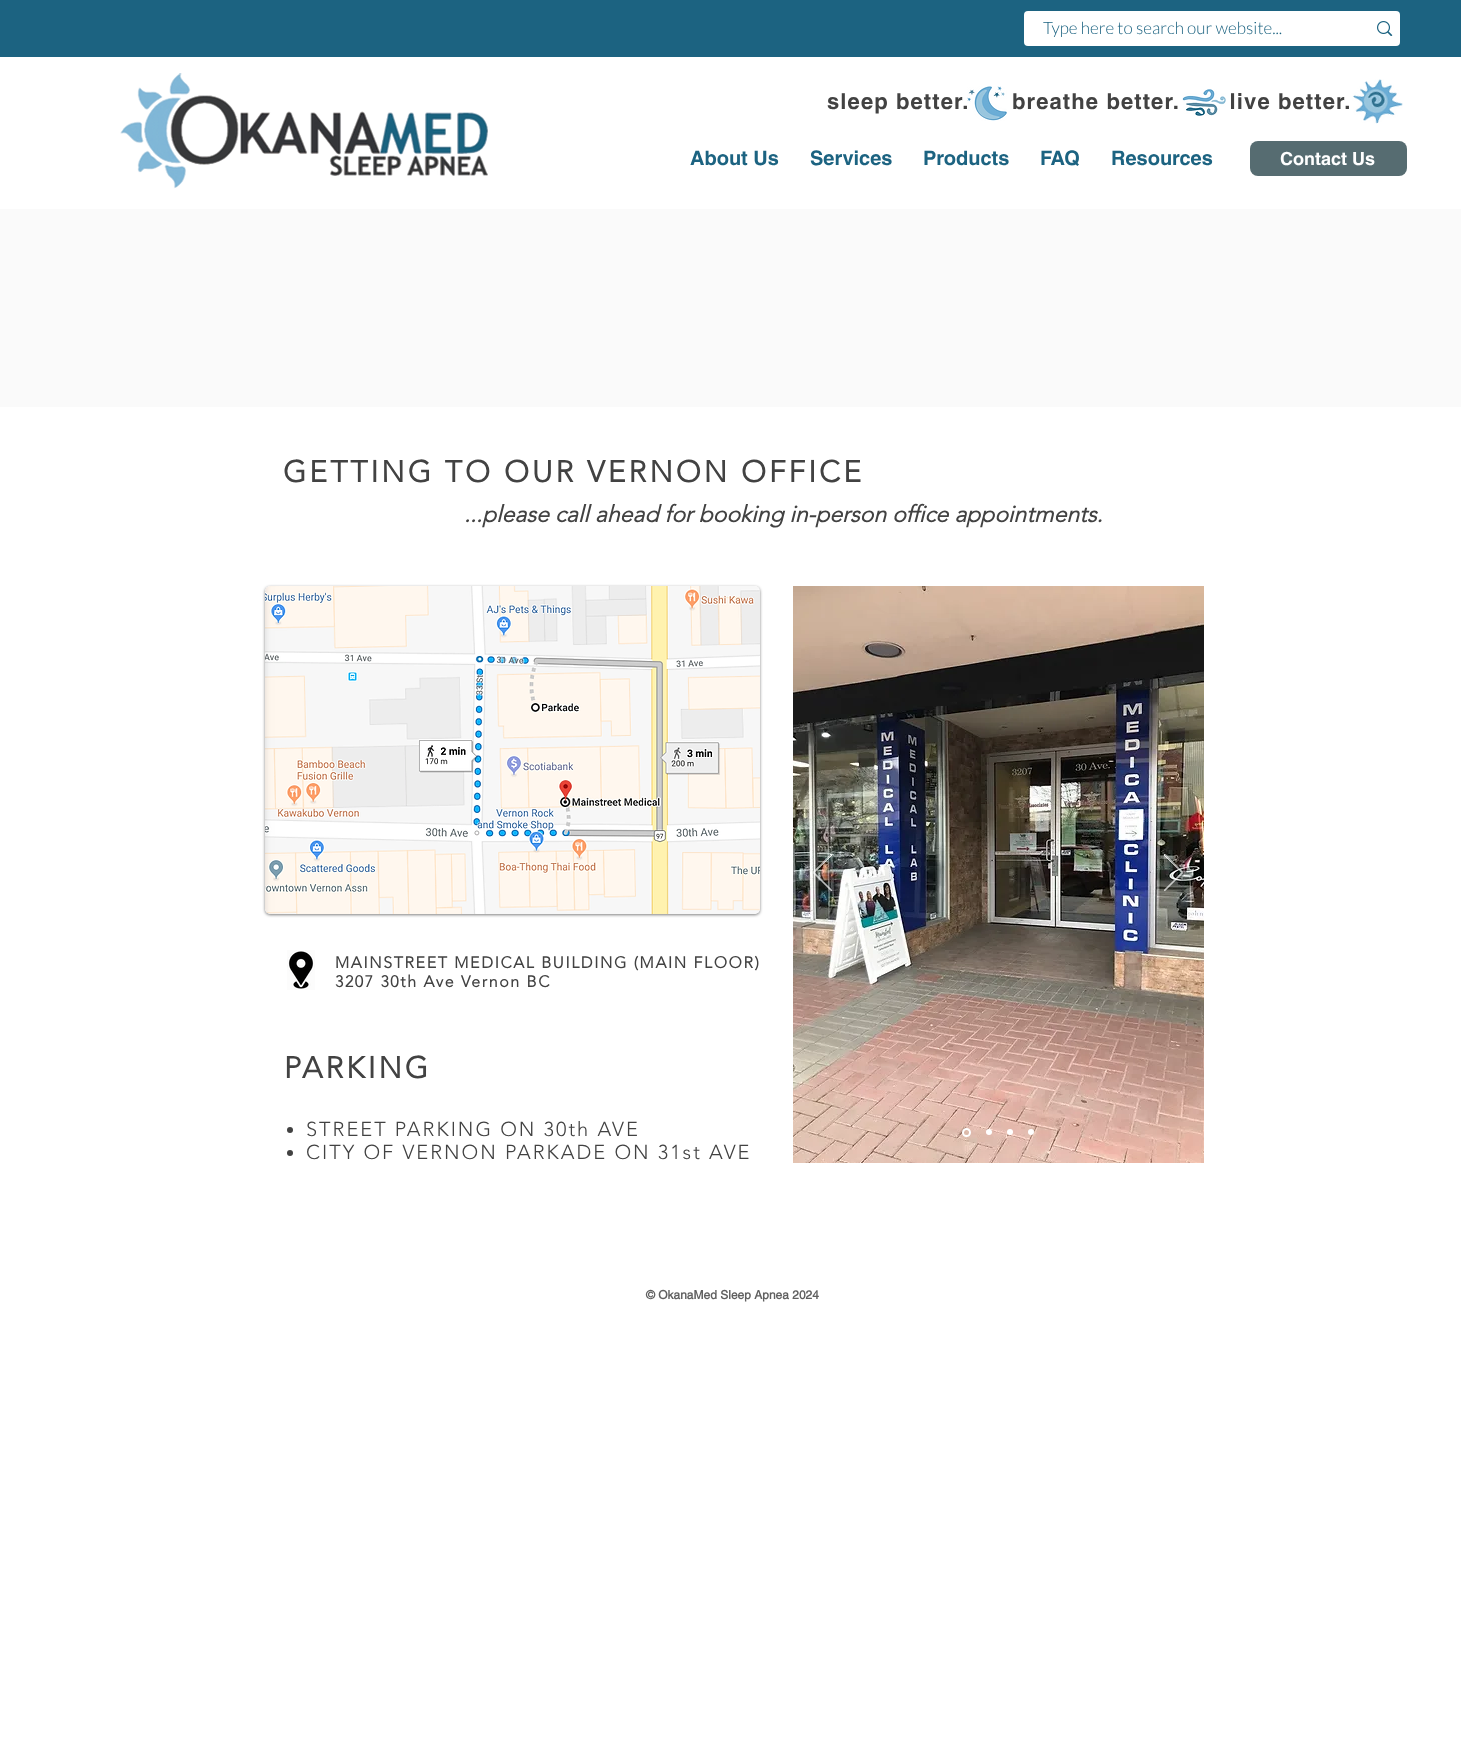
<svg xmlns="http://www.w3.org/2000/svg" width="1461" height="1742">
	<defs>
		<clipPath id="clip1"><rect x="813" y="854" width="19" height="37" /></clipPath>
		<clipPath id="clip2"><rect x="1164" y="854" width="19" height="37" /></clipPath>
	</defs>
	<rect width="100%" height="100%" fill="#FFFFFF" />
	<rect x="0" y="0" width="1461" height="57" fill="#1C6381" />
	<rect x="1024" y="11" width="376" height="35" rx="4" fill="#FFFFFF" />
	<text x="1043" y="34" font-family="Lato" font-size="17" font-weight="300" fill="#1C6381">Type here to search our website...</text>
	<image x="1377" y="21" width="16" height="15" href="assets/img1.png" />
	<image x="120" y="73" width="368" height="116" href="assets/img2.png" />
	<image x="967" y="86" width="40" height="35" href="assets/img3.png" />
	<image x="1182" y="89" width="44" height="27" href="assets/img4.png" />
	<image x="1352" y="79" width="51" height="45" href="assets/img5.png" />
	<text x="827" y="109" font-family="helvetica" font-size="22" font-weight="700" letter-spacing="1.1" fill="#424242" xml:space="preserve">sleep better.      breathe better.       live better.</text>
	<g font-family="helvetica" font-size="20" font-weight="700" fill="#1C6381">
		<text x="690" y="165">About Us</text>
		<text x="810" y="165">Services</text>
		<text x="923" y="165">Products</text>
		<text x="1040" y="165">FAQ</text>
		<text x="1111" y="165">Resources</text>
	</g>
	<rect x="1250" y="141" width="157" height="35" rx="8" fill="#566C71" />
	<text x="1280" y="165" font-family="helvetica" font-size="18" font-weight="700" fill="#FFFFFF">Contact Us</text>
	<rect x="0" y="209" width="1461" height="198" fill="#FAFAFA" />
	<text x="283" y="482" font-family="'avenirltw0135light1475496'" font-size="30" font-weight="700" letter-spacing="3" fill="#424242">GETTING TO OUR VERNON OFFICE</text>
	<text x="464" y="522" font-family="'avenirltw0135light1475496'" font-size="23" font-weight="700" font-style="italic" fill="#424242">...please call ahead for booking in-person office appointments.</text>
	<rect x="265" y="587" width="495" height="328" rx="5" fill="#000000" fill-opacity="0.5" filter="blur(1.5px)" />
	<rect x="265" y="586" width="495" height="328" rx="5" fill="#FFFFFF" />
	<image x="265" y="586" width="495" height="328" href="assets/img6.png" />
	<image x="793" y="586" width="411" height="577" href="assets/img7.png" />
	<g clip-path="url(#clip1)">
		<path d="M831.5 891L813 872.5L831.5 854L832 855L814 872.5L832 890.5Z" fill="none" stroke="#FFFFFF" stroke-width="0.9" />
	</g>
	<g clip-path="url(#clip2)">
		<path d="M1164.5 891L1183 872.5L1164.5 854L1164 855L1182 872.5L1164 890.5Z" fill="none" stroke="#FFFFFF" stroke-width="0.9" />
	</g>
	<circle cx="966.5" cy="1132.5" r="3.5" fill="none" stroke="#FFFFFF" stroke-width="2" />
	<circle cx="989" cy="1132" r="3" fill="#FFFFFF" />
	<circle cx="1010" cy="1132" r="3" fill="#FFFFFF" />
	<circle cx="1031" cy="1132" r="3" fill="#FFFFFF" />
	<image x="287" y="950" width="28" height="40" href="assets/img8.png" />
	<g font-family="'avenirltw0135light1475496'" font-size="16" font-weight="700" letter-spacing="1.6" fill="#424242">
		<text x="335" y="968">MAINSTREET MEDICAL BUILDING (MAIN FLOOR)</text>
		<text x="335" y="987">3207 30th Ave Vernon BC</text>
	</g>
	<text x="284" y="1078" font-family="'avenirltw0135light1475496'" font-size="30" font-weight="700" letter-spacing="3" fill="#424242">PARKING</text>
	<circle cx="290" cy="1130" r="3" fill="#424242" />
	<text x="306" y="1136" font-family="'avenirltw0135light1475496'" font-size="20" font-weight="300" letter-spacing="2" fill="#424242">STREET PARKING ON 30th AVE</text>
	<circle cx="290" cy="1153" r="3" fill="#424242" />
	<text x="306" y="1159" font-family="'avenirltw0135light1475496'" font-size="20" font-weight="300" letter-spacing="2" fill="#424242">CITY OF VERNON PARKADE ON 31st AVE</text>
	<text x="646" y="1299" font-family="'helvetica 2'" font-size="12" font-weight="700" fill="#606060">© OkanaMed Sleep Apnea 2024</text>
</svg>
